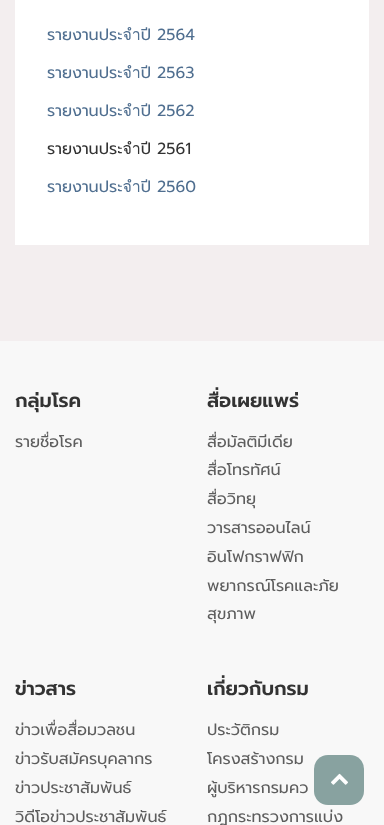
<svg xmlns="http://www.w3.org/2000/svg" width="384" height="825">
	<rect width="100%" height="100%" fill="#F3EEEF" />
	<rect x="15" y="0" width="354" height="245" fill="#FFFFFF" />
	<g font-family="Prompt" font-size="16" fill="#506F90">
		<text x="47" y="40">รายงานประจำปี 2564</text>
		<text x="47" y="78">รายงานประจำปี 2563</text>
		<text x="47" y="116">รายงานประจำปี 2562</text>
	</g>
	<text x="47" y="154" font-family="Prompt" font-size="16" fill="#333333">รายงานประจำปี 2561</text>
	<text x="47" y="192" font-family="Prompt" font-size="16" fill="#506F90">รายงานประจำปี 2560</text>
	<rect x="0" y="341" width="384" height="484" fill="#F8F8F8" />
	<text x="15" y="407" font-family="Prompt" font-size="19.25" font-weight="600" fill="#333333">กลุ่มโรค</text>
	<text x="15" y="447" font-family="Prompt" font-size="16" fill="#5D5D5D">รายชื่อโรค</text>
	<text x="207" y="407" font-family="Prompt" font-size="19.25" font-weight="600" fill="#333333">สื่อเผยแพร่</text>
	<g font-family="Prompt" font-size="16" fill="#5D5D5D">
		<text x="207" y="447">สื่อมัลติมีเดีย</text>
		<text x="207" y="475">สื่อโทรทัศน์</text>
		<text x="207" y="504">สื่อวิทยุ</text>
		<text x="207" y="533">วารสารออนไลน์</text>
		<text x="207" y="562">อินโฟกราฟฟิก</text>
		<text x="207" y="591">พยากรณ์โรคและภัย</text>
		<text x="207" y="619">สุขภาพ</text>
	</g>
	<text x="15" y="695" font-family="Prompt" font-size="19.25" font-weight="600" fill="#333333">ข่าวสาร</text>
	<g font-family="Prompt" font-size="16" fill="#5D5D5D">
		<text x="15" y="735">ข่าวเพื่อสื่อมวลชน</text>
		<text x="15" y="764">ข่าวรับสมัครบุคลากร</text>
		<text x="15" y="793">ข่าวประชาสัมพันธ์</text>
		<text x="15" y="822">วิดีโอข่าวประชาสัมพันธ์</text>
	</g>
	<text x="207" y="695" font-family="Prompt" font-size="19.25" font-weight="600" fill="#333333">เกี่ยวกับกรม</text>
	<g font-family="Prompt" font-size="16" fill="#5D5D5D">
		<text x="207" y="735">ประวัติกรม</text>
		<text x="207" y="764">โครงสร้างกรม</text>
		<text x="207" y="793">ผู้บริหารกรมคว</text>
		<text x="207" y="822">กฎกระทรวงการแบ่ง</text>
	</g>
	<rect x="314" y="755" width="50" height="50" rx="14" fill="#587D7A" fill-opacity="0.7" />
	<image x="331" y="773" width="17" height="12" href="assets/img1.png" />
</svg>
